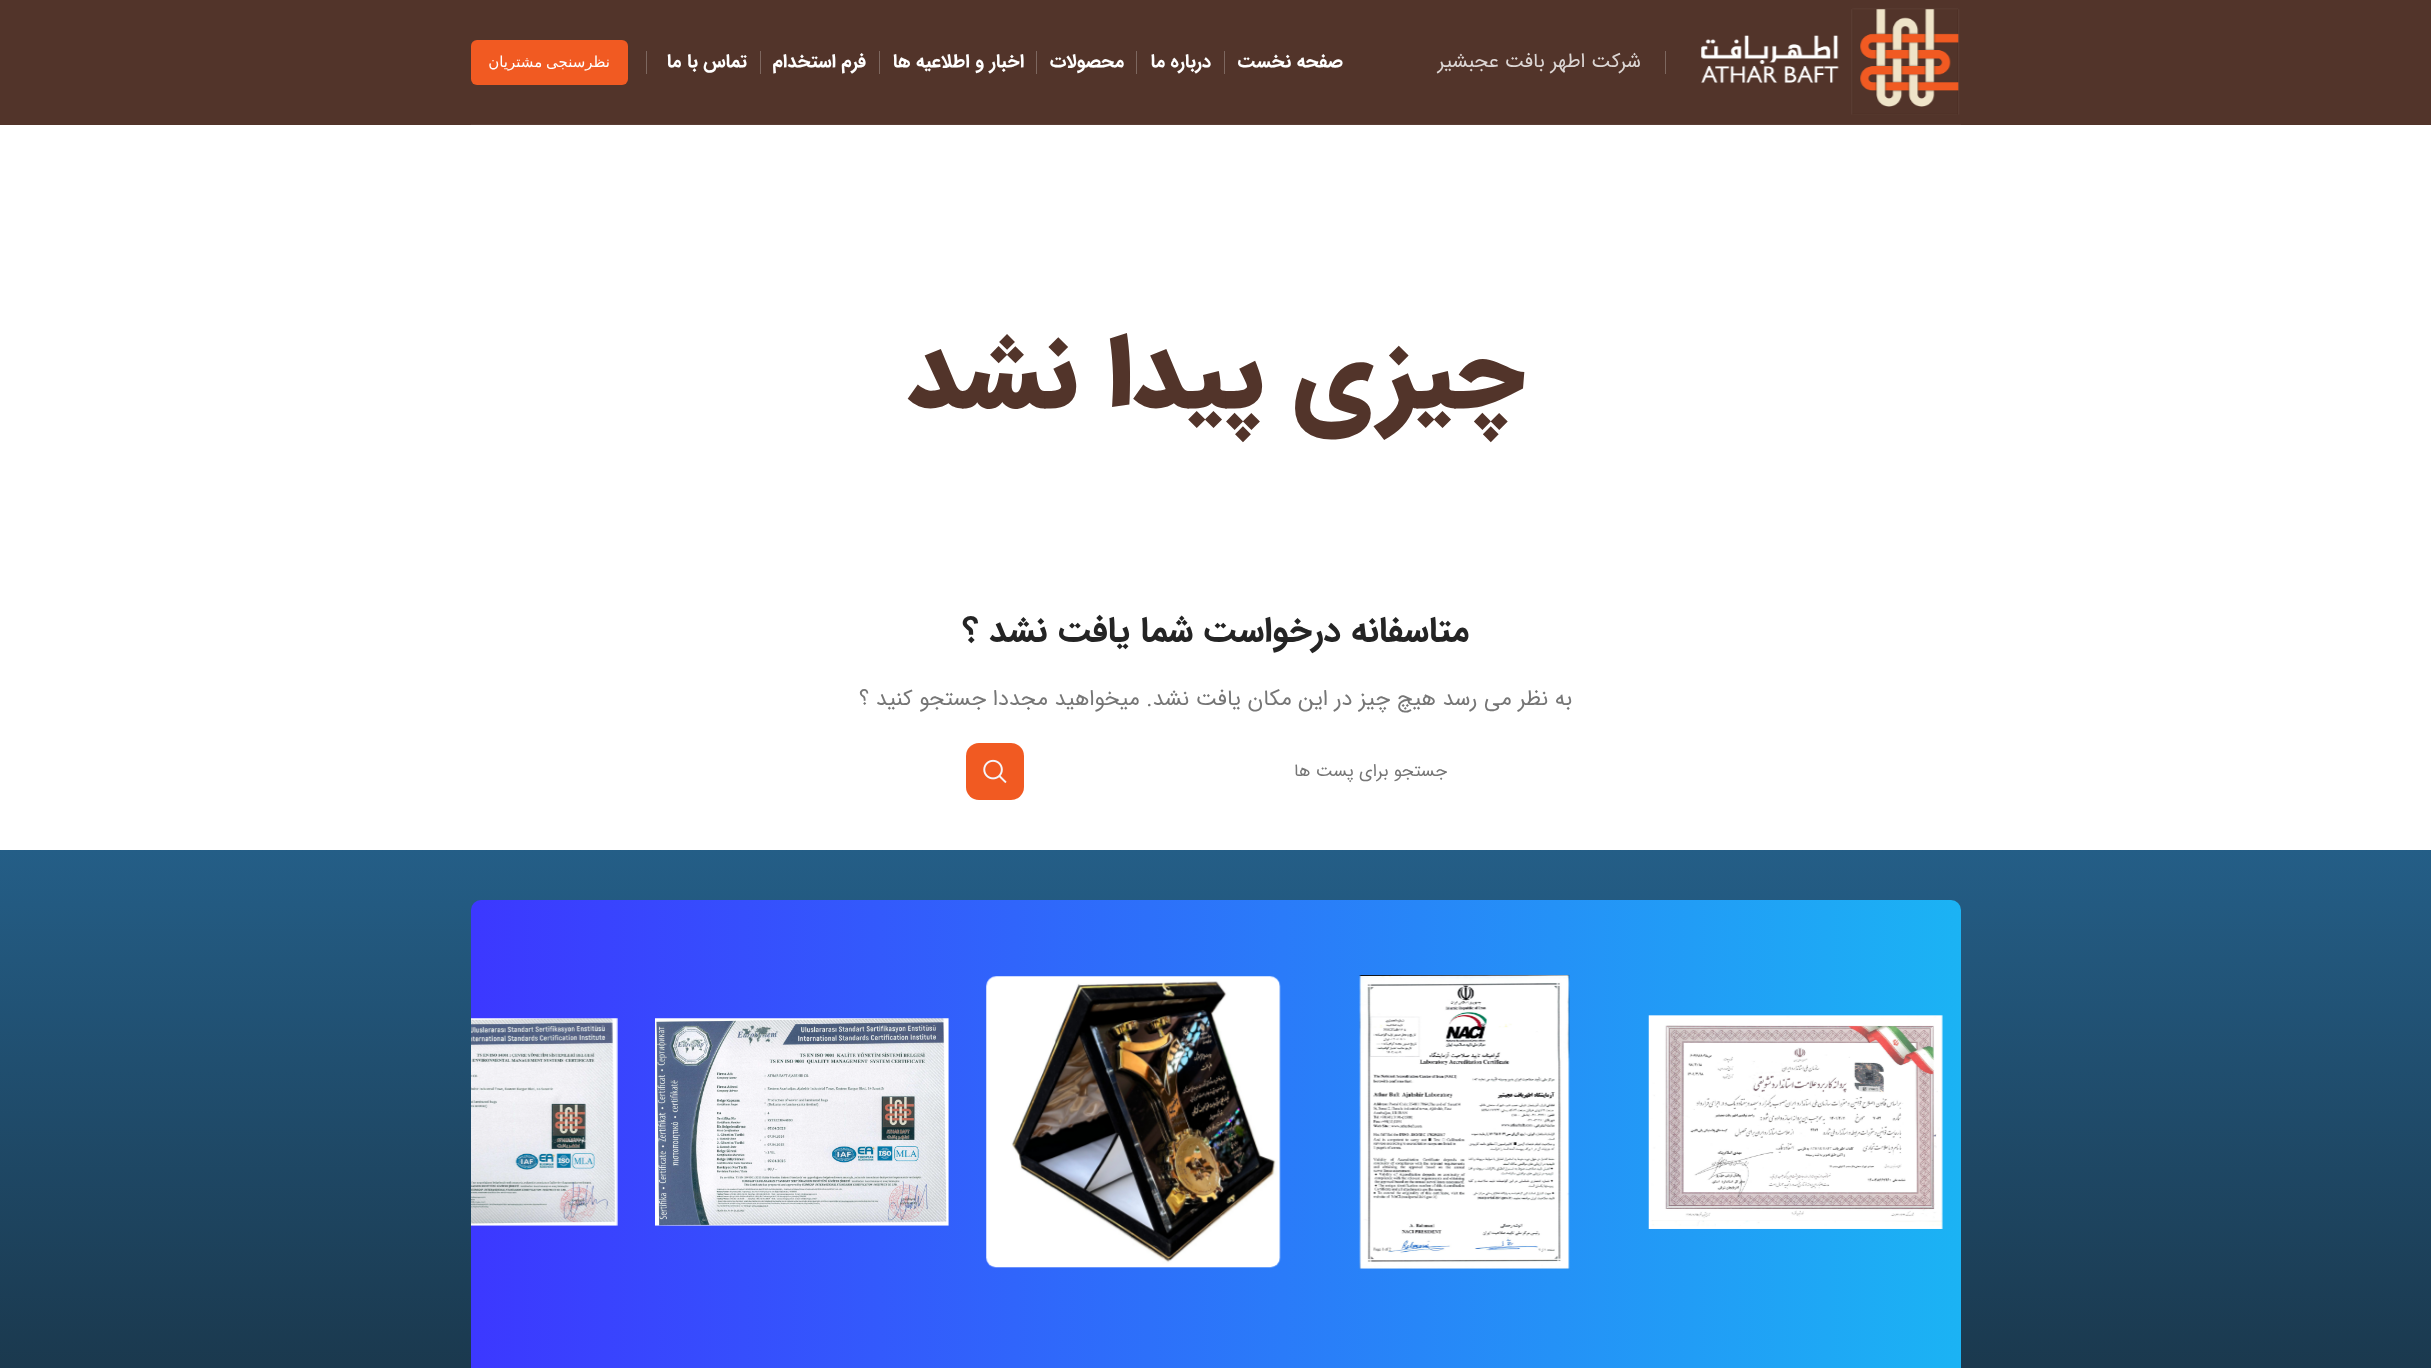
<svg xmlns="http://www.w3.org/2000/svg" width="2431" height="1368">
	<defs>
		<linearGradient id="g1" gradientUnits="userSpaceOnUse" x1="1216" y1="850" x2="1216" y2="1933"><stop offset="0" stop-color="#245E87" /><stop offset="1" stop-color="#101010" /></linearGradient>
		<linearGradient id="g2" gradientUnits="userSpaceOnUse" x1="471" y1="1255" x2="1961" y2="1255"><stop offset="0" stop-color="#3C38FF" /><stop offset="1" stop-color="#1BB3F4" /></linearGradient>
	</defs>
	<rect width="100%" height="100%" fill="#FFFFFF" />
	<rect x="0" y="0" width="2431" height="125" fill="#52342A" />
	<rect x="471" y="124" width="1490" height="1" fill="#5B3E35" />
	<image x="1701" y="8" width="259" height="107" href="assets/img1.png" />
	<rect x="1665" y="51" width="1" height="23" fill="#7D675F" />
	<text x="1641" y="67" font-family="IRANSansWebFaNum" font-size="20" direction="rtl" fill="#DCD6D4">شرکت اطهر بافت عجبشیر</text>
	<text x="1343" y="67" font-family="IRANSansWebFaNum" font-size="18.75" font-weight="700" direction="rtl" fill="#FFFFFF">صفحه نخست</text>
	<rect x="1224" y="51" width="1" height="23" fill="#7D675F" />
	<text x="1211" y="67" font-family="IRANSansWebFaNum" font-size="18.75" font-weight="700" direction="rtl" fill="#FFFFFF">درباره ما</text>
	<rect x="1136" y="51" width="1" height="23" fill="#7D675F" />
	<text x="1124" y="67" font-family="IRANSansWebFaNum" font-size="18.75" font-weight="700" direction="rtl" fill="#FFFFFF">محصولات</text>
	<rect x="1036" y="51" width="1" height="23" fill="#7D675F" />
	<text x="1024" y="67" font-family="IRANSansWebFaNum" font-size="18.75" font-weight="700" direction="rtl" fill="#FFFFFF">اخبار و اطلاعیه ها</text>
	<rect x="879" y="51" width="1" height="23" fill="#7D675F" />
	<text x="866" y="67" font-family="IRANSansWebFaNum" font-size="18.75" font-weight="700" direction="rtl" fill="#FFFFFF">فرم استخدام</text>
	<rect x="760" y="51" width="1" height="23" fill="#7D675F" />
	<text x="747" y="67" font-family="IRANSansWebFaNum" font-size="18.75" font-weight="700" direction="rtl" fill="#FFFFFF">تماس با ما</text>
	<rect x="646" y="51" width="1" height="23" fill="#7D675F" />
	<rect x="471" y="40" width="157" height="45" rx="6" fill="#F15A22" />
	<text x="610" y="67" word-spacing="-1" font-family="DejaVu Sans" font-size="15" direction="rtl" fill="#FFFFFF">نظرسنجی مشتریان</text>
	<text x="1526" y="404" font-family="IRANSansWebFaNum" font-size="102" font-weight="900" direction="rtl" fill="#52342A">چیزی پیدا نشد</text>
	<text x="1469" y="641" font-family="IRANSansWebFaNum" font-size="35" font-weight="700" direction="rtl" fill="#242424">متاسفانه درخواست شما یافت نشد ؟</text>
	<text x="1572" y="705" font-family="IRANSansWebFaNum" font-size="22" direction="rtl" fill="#767676">به نظر می رسد هیچ چیز در این مکان یافت نشد. میخواهید مجددا جستجو کنید ؟</text>
	<text x="1447" y="776" font-family="IRANSansWebFaNum" font-size="17.5" direction="rtl" fill="#767676">جستجو برای پست ها</text>
	<rect x="966" y="743" width="58" height="57" rx="13" fill="#F15A22" />
	<image x="983" y="759" width="24" height="25" href="assets/img2.png" />
	<rect x="0" y="850" width="2431" height="518" fill="url(#g1)" />
	<rect x="471" y="900" width="1490" height="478" rx="10" fill="url(#g2)" />
	<image x="1648" y="1015" width="295" height="214" href="assets/img3.png" />
	<image x="1359" y="975" width="211" height="294" href="assets/img4.png" />
	<image x="986" y="976" width="295" height="292" href="assets/img5.png" />
	<image x="655" y="1018" width="294" height="208" href="assets/img6.png" />
	<image x="471" y="1018" width="147" height="208" href="assets/img7.png" />
</svg>
